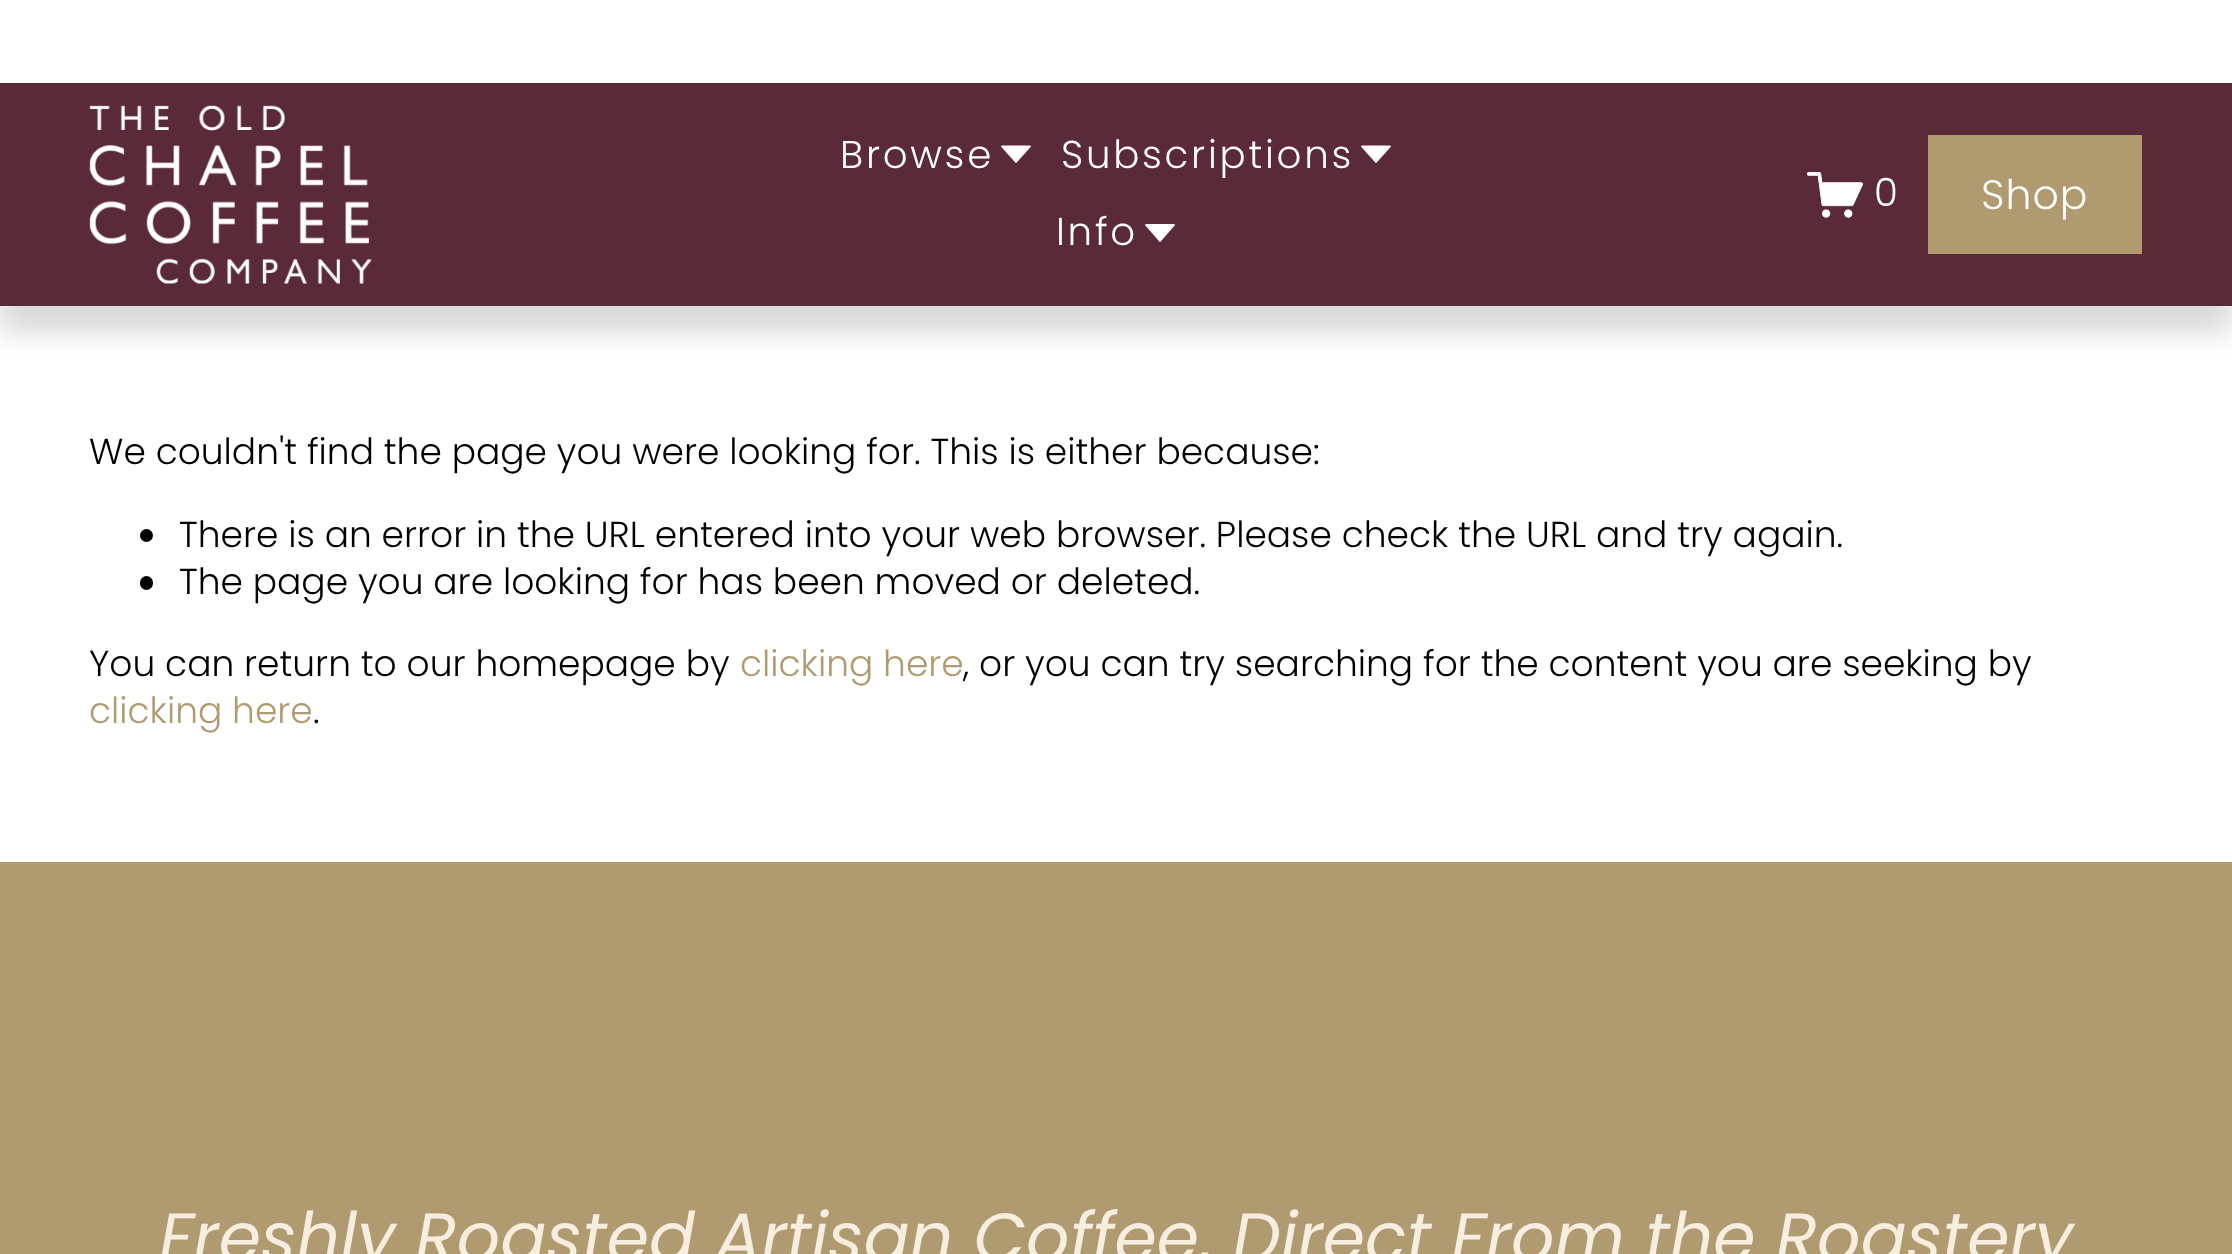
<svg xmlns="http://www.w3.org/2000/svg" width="2232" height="1254">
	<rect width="100%" height="100%" fill="#FFFFFF" />
	<rect x="0" y="110" width="2232" height="223" fill="#D9D9D9" filter="blur(13.5px)" />
	<rect x="0" y="83" width="2232" height="223" fill="#5A2A38" />
	<image x="89" y="105" width="283" height="179" href="assets/img1.png" />
	<text x="840" y="168" font-family="Poppins" font-size="38.75" font-weight="300" letter-spacing="2.75" fill="#FFFFFF">Browse</text>
	<path d="M1030 146.5L1016 162L1002 146.5Z" fill="#FFFFFF" stroke="#FFFFFF" stroke-width="1.8" stroke-linecap="round" stroke-linejoin="round" />
	<text x="1061" y="168" font-family="Poppins" font-size="38.75" font-weight="300" letter-spacing="2.75" fill="#FFFFFF">Subscriptions</text>
	<path d="M1390 146.5L1376 162L1362 146.5Z" fill="#FFFFFF" stroke="#FFFFFF" stroke-width="1.8" stroke-linecap="round" stroke-linejoin="round" />
	<text x="1056" y="245" font-family="Poppins" font-size="38.75" font-weight="300" letter-spacing="2.75" fill="#FFFFFF">Info</text>
	<path d="M1174 225L1160 241L1146 225Z" fill="#FFFFFF" stroke="#FFFFFF" stroke-width="1.8" stroke-linecap="round" stroke-linejoin="round" />
	<image x="1807" y="172" width="56" height="46" href="assets/img2.png" />
	<text x="1874" y="206" font-family="Poppins" font-size="38.75" font-weight="300" letter-spacing="2.75" fill="#FFFFFF">0</text>
	<rect x="1928" y="135" width="214" height="119" fill="#B09A70" />
	<text x="1981" y="209" font-family="Poppins" font-size="41" font-weight="300" letter-spacing="1" fill="#FFFFFF">Shop</text>
	<text x="89" y="464" font-family="Poppins" font-size="36" font-weight="300" fill="#000000">We couldn't find the page you were looking for. This is either because:</text>
	<circle cx="146.5" cy="535.5" r="6.5" fill="#000000" />
	<text x="179" y="547" font-family="Poppins" font-size="36" font-weight="300" fill="#000000">There is an error in the URL entered into your web browser. Please check the URL and try again.</text>
	<rect x="140" y="576" width="13" height="14" rx="6.5" fill="#000000" />
	<g font-family="Poppins" font-size="36" font-weight="300" fill="#000000">
		<text x="179" y="594">The page you are looking for has been moved or deleted.</text>
		<text x="89" y="676">You can return to our homepage by</text>
	</g>
	<text x="740" y="676" font-family="Poppins" font-size="36" font-weight="300" fill="#B09A70">clicking here</text>
	<text x="963" y="676" font-family="Poppins" font-size="36" font-weight="300" fill="#000000">, or you can try searching for the content you are seeking by</text>
	<text x="89" y="723" font-family="Poppins" font-size="36" font-weight="300" fill="#B09A70">clicking here</text>
	<text x="313" y="723" font-family="Poppins" font-size="36" font-weight="300" fill="#000000">.</text>
	<rect x="0" y="862" width="2232" height="392" fill="#B09A70" />
	<text x="159" y="1261" word-spacing="-0.25" font-family="Poppins" font-size="68.15" font-style="italic" fill="#F7EEE0">Freshly Roasted Artisan Coffee, Direct From the Roastery</text>
</svg>
